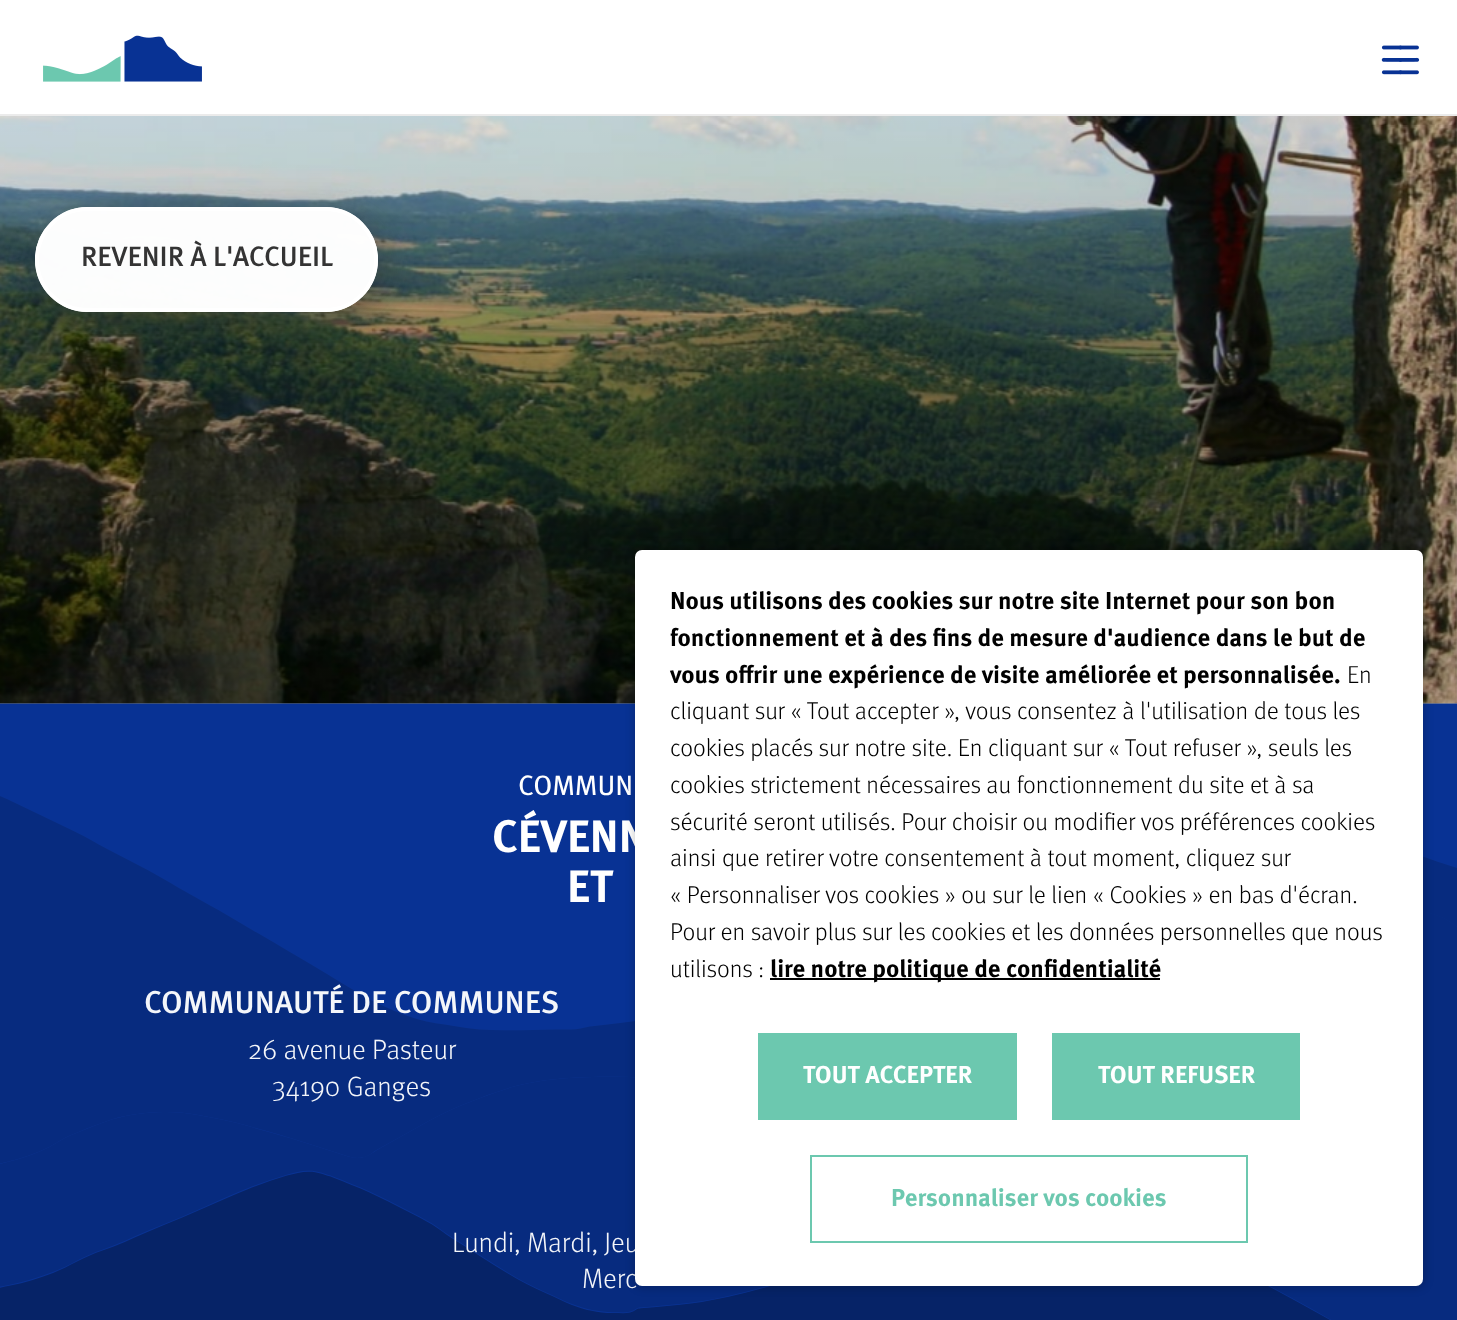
<svg xmlns="http://www.w3.org/2000/svg" width="1457" height="1320">
	<defs>
		<linearGradient id="g1" gradientUnits="userSpaceOnUse" x1="729" y1="704" x2="729" y2="-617"><stop offset="0" stop-color="#000000" stop-opacity="0.25" /><stop offset="0.75" stop-color="#000000" stop-opacity="0" /></linearGradient>
		<clipPath id="clip1"><path d="M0 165H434V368H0ZM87.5 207H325.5C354.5 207 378 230.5 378 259.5C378 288.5 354.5 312 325.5 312H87.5C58.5 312 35 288.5 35 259.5C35 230.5 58.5 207 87.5 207Z" clip-rule="evenodd" /></clipPath>
	</defs>
	<rect width="100%" height="100%" fill="#FFFFFF" />
	<image x="43" y="35" width="159" height="47" href="assets/img1.png" />
	<image x="1381" y="45" width="39" height="30" href="assets/img2.png" />
	<rect x="0" y="114" width="1457" height="2" fill="#EBEBEB" />
	<image x="0" y="116" width="1457" height="588" href="assets/img3.png" />
	<rect x="0" y="116" width="1457" height="588" fill="url(#g1)" />
	<g clip-path="url(#clip1)">
		<rect x="42" y="214" width="343" height="105" rx="52.5" fill="#333333" fill-opacity="0.45" filter="blur(16px)" />
	</g>
	<rect x="35" y="207" width="343" height="105" rx="52.5" fill="#FFFFFF" fill-opacity="0.99" />
	<rect x="37" y="209" width="339" height="101" rx="50.5" fill="none" stroke="#FFFFFF" stroke-opacity="0.99" stroke-width="4" />
	<text x="81" y="266" font-family="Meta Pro" font-size="28" font-weight="500" fill="#343434">REVENIR À L'ACCUEIL</text>
	<image x="0" y="703" width="1457" height="617" href="assets/img4.png" />
	<text x="518" y="795" font-family="Meta Pro" font-size="28" fill="#FFFFFF">COMMUN</text>
	<g font-family="Meta Pro" font-size="45.5" font-weight="700" fill="#FFFFFF">
		<text x="492" y="852">CÉVENN</text>
		<text x="567" y="902">ET</text>
	</g>
	<text x="144" y="1013" font-family="Meta Pro" font-size="31.5" font-weight="500" fill="#F4F6FA">COMMUNAUTÉ DE COMMUNES</text>
	<g font-family="Meta Pro" font-size="28" font-weight="300" fill="#F4F6FA">
		<text x="248" y="1059">26 avenue Pasteur</text>
		<text x="272" y="1096">34190 Ganges</text>
		<text x="452" y="1252">Lundi, Mardi, Jeu</text>
		<text x="582" y="1288">Merc</text>
	</g>
	<rect x="634" y="548" width="791" height="740" rx="9" fill="#000000" fill-opacity="0.2" filter="blur(4.5px)" />
	<rect x="635" y="550" width="788" height="736" rx="7" fill="#FFFFFF" />
	<g font-family="Meta Pro" font-size="24.5" font-weight="700" fill="#000000">
		<text x="670" y="609">Nous utilisons des cookies sur notre site Internet pour son bon</text>
		<text x="670" y="646">fonctionnement et à des fins de mesure d'audience dans le but de</text>
		<text x="670" y="683">vous offrir une expérience de visite améliorée et personnalisée.</text>
	</g>
	<g font-family="Meta Pro" font-size="24.5" font-weight="300" fill="#000000">
		<text x="1347" y="683">En</text>
		<text x="670" y="719">cliquant sur « Tout accepter », vous consentez à l'utilisation de tous les</text>
		<text x="670" y="756">cookies placés sur notre site. En cliquant sur « Tout refuser », seuls les</text>
		<text x="670" y="793">cookies strictement nécessaires au fonctionnement du site et à sa</text>
		<text x="670" y="830">sécurité seront utilisés. Pour choisir ou modifier vos préférences cookies</text>
		<text x="670" y="866">ainsi que retirer votre consentement à tout moment, cliquez sur</text>
		<text x="670" y="903">« Personnaliser vos cookies » ou sur le lien « Cookies » en bas d'écran.</text>
		<text x="670" y="940">Pour en savoir plus sur les cookies et les données personnelles que nous</text>
		<text x="670" y="977">utilisons :</text>
	</g>
	<rect x="770" y="978" width="390" height="2" fill="#000000" />
	<text x="770" y="977" font-family="Meta Pro" font-size="24.5" font-weight="700" fill="#000000">lire notre politique de confidentialité</text>
	<rect x="758" y="1033" width="259" height="87" fill="#6CC8AF" />
	<text x="803" y="1083" font-family="Meta Pro" font-size="24.5" font-weight="700" fill="#FFFFFF">TOUT ACCEPTER</text>
	<rect x="1052" y="1033" width="248" height="87" fill="#6CC8AF" />
	<text x="1098" y="1083" font-family="Meta Pro" font-size="24.5" font-weight="700" fill="#FFFFFF">TOUT REFUSER</text>
	<rect x="811" y="1156" width="436" height="86" fill="none" stroke="#6CC8AF" stroke-width="2" />
	<text x="891" y="1206" font-family="Meta Pro" font-size="24.5" font-weight="700" fill="#6CC8AF">Personnaliser vos cookies</text>
</svg>
